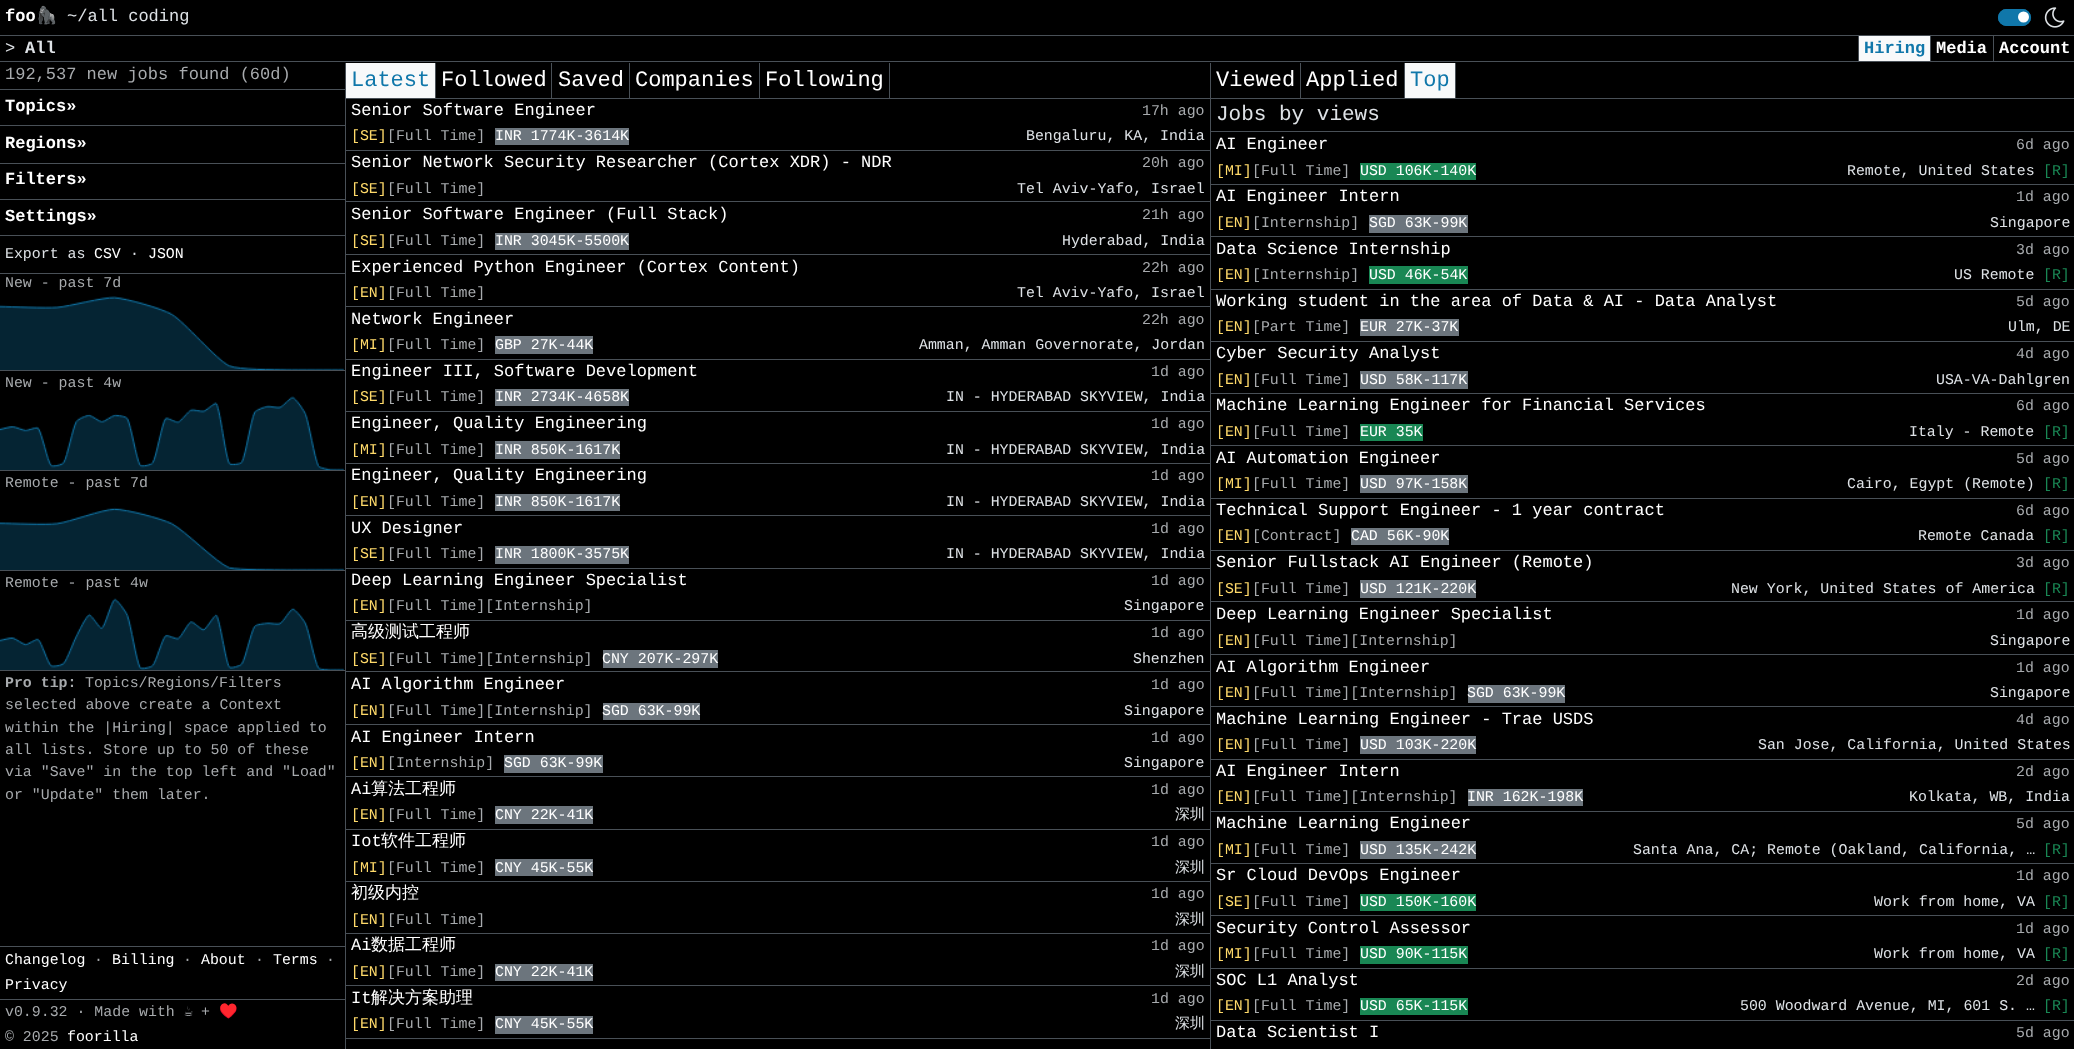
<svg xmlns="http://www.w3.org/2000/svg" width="2074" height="1049">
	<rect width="100%" height="100%" fill="#000000" />
	<rect x="0" y="35" width="2074" height="1" fill="#495057" />
	<text x="5" y="21" font-family="Liberation Mono" font-size="17" font-weight="700" fill="#FFFFFF">foo</text>
	<text x="36" y="21" font-family="Noto Color Emoji" font-size="17" font-weight="700" fill="#FFFFFF">🦍</text>
	<text x="67" y="21" font-family="Liberation Mono" font-size="17" fill="#DEE2E6">~/all coding</text>
	<rect x="1998" y="9" width="33" height="17" rx="8.5" fill="#1077AA" />
	<circle cx="2023.5" cy="17" r="5.5" fill="#FFFFFF" />
	<rect x="1998.5" y="9.5" width="32" height="16" rx="8" fill="none" stroke="#1077AA" />
	<image x="2044" y="7" width="21" height="21" href="assets/img1.png" />
	<rect x="0" y="61" width="2074" height="1" fill="#495057" />
	<text x="5" y="53" font-family="Liberation Mono" font-size="17" fill="#DEE2E6">&gt;</text>
	<text x="25" y="53" font-family="Liberation Mono" font-size="17" font-weight="700" fill="#DEE2E6">All</text>
	<rect x="1859" y="36" width="71" height="25" fill="#F8F9FA" />
	<rect x="1858" y="36" width="1" height="25" fill="#495057" />
	<text x="1864" y="53" font-family="Liberation Mono" font-size="17" font-weight="700" fill="#1077AA">Hiring</text>
	<rect x="1930" y="36" width="1" height="25" fill="#495057" />
	<text x="1936" y="53" font-family="Liberation Mono" font-size="17" font-weight="700" fill="#FFFFFF">Media</text>
	<rect x="1993" y="36" width="1" height="25" fill="#495057" />
	<text x="1999" y="53" font-family="Liberation Mono" font-size="17" font-weight="700" fill="#FFFFFF">Account</text>
	<rect x="345" y="63" width="1" height="986" fill="#495057" />
	<rect x="0" y="89" width="345" height="1" fill="#495057" />
	<text x="5" y="79" font-family="Liberation Mono" font-size="17" fill="#A7AAAD">192,537 new jobs found (60d)</text>
	<rect x="0" y="125" width="345" height="1" fill="#495057" />
	<text x="5" y="111" font-family="Liberation Mono" font-size="17" font-weight="700" fill="#FFFFFF">Topics»</text>
	<rect x="0" y="163" width="345" height="1" fill="#495057" />
	<text x="5" y="148" font-family="Liberation Mono" font-size="17" font-weight="700" fill="#FFFFFF">Regions»</text>
	<rect x="0" y="199" width="345" height="1" fill="#495057" />
	<text x="5" y="184" font-family="Liberation Mono" font-size="17" font-weight="700" fill="#FFFFFF">Filters»</text>
	<rect x="0" y="235" width="345" height="1" fill="#495057" />
	<text x="5" y="221" font-family="Liberation Mono" font-size="17" font-weight="700" fill="#FFFFFF">Settings»</text>
	<rect x="0" y="273" width="345" height="1" fill="#495057" />
	<text x="5" y="258" font-family="Liberation Mono" font-size="14.9" fill="#DEE2E6">Export as</text>
	<text x="94" y="258" font-family="Liberation Mono" font-size="14.9" fill="#FFFFFF">CSV</text>
	<text x="130" y="258" font-family="Liberation Mono" font-size="14.9" fill="#DEE2E6">·</text>
	<text x="148" y="258" font-family="Liberation Mono" font-size="14.9" fill="#FFFFFF">JSON</text>
	<text x="5" y="287" font-family="Liberation Mono" font-size="14.9" fill="#A7AAAD">New - past 7d</text>
	<rect x="0" y="370" width="345" height="1" fill="#495057" />
	<image x="0" y="296" width="344" height="74" href="assets/img2.png" />
	<text x="5" y="387" font-family="Liberation Mono" font-size="14.9" fill="#A7AAAD">New - past 4w</text>
	<rect x="0" y="470" width="345" height="1" fill="#495057" />
	<image x="0" y="396" width="344" height="74" href="assets/img3.png" />
	<text x="5" y="487" font-family="Liberation Mono" font-size="14.9" fill="#A7AAAD">Remote - past 7d</text>
	<rect x="0" y="570" width="345" height="1" fill="#495057" />
	<image x="0" y="507" width="344" height="63" href="assets/img4.png" />
	<text x="5" y="587" font-family="Liberation Mono" font-size="14.9" fill="#A7AAAD">Remote - past 4w</text>
	<rect x="0" y="670" width="345" height="1" fill="#495057" />
	<image x="0" y="598" width="344" height="72" href="assets/img5.png" />
	<text x="5" y="687" font-family="Liberation Mono" font-size="14.9" font-weight="700" fill="#A7AAAD">Pro tip:</text>
	<g font-family="Liberation Mono" font-size="14.9" fill="#A7AAAD">
		<text x="85" y="687">Topics/Regions/Filters</text>
		<text x="5" y="709">selected above create a Context</text>
		<text x="5" y="732">within the |Hiring| space applied to</text>
		<text x="5" y="754">all lists. Store up to 50 of these</text>
		<text x="5" y="776">via "Save" in the top left and "Load"</text>
		<text x="5" y="799">or "Update" them later.</text>
	</g>
	<rect x="0" y="946" width="345" height="1" fill="#495057" />
	<text x="5" y="964" font-family="Liberation Mono" font-size="14.9" fill="#FFFFFF">Changelog</text>
	<text x="94" y="964" font-family="Liberation Mono" font-size="14.9" fill="#A7AAAD">·</text>
	<text x="112" y="964" font-family="Liberation Mono" font-size="14.9" fill="#FFFFFF">Billing</text>
	<text x="183" y="964" font-family="Liberation Mono" font-size="14.9" fill="#A7AAAD">·</text>
	<text x="201" y="964" font-family="Liberation Mono" font-size="14.9" fill="#FFFFFF">About</text>
	<text x="255" y="964" font-family="Liberation Mono" font-size="14.9" fill="#A7AAAD">·</text>
	<text x="273" y="964" font-family="Liberation Mono" font-size="14.9" fill="#FFFFFF">Terms</text>
	<text x="326" y="964" font-family="Liberation Mono" font-size="14.9" fill="#A7AAAD">·</text>
	<text x="5" y="989" font-family="Liberation Mono" font-size="14.9" fill="#FFFFFF">Privacy</text>
	<rect x="0" y="999" width="345" height="1" fill="#495057" />
	<text x="5" y="1016" font-family="Liberation Mono" font-size="14.9" fill="#A7AAAD">v0.9.32 · Made with</text>
	<text x="184" y="1016" font-family="DejaVu Sans Mono" font-size="14.9" fill="#A7AAAD">☕</text>
	<text x="201" y="1016" font-family="Liberation Mono" font-size="14.9" fill="#A7AAAD">+</text>
	<text x="219" y="1016" font-family="Noto Color Emoji" font-size="14.9" fill="#A7AAAD">♥️</text>
	<text x="5" y="1041" font-family="Liberation Mono" font-size="14.9" fill="#A7AAAD">© 2025</text>
	<text x="67" y="1041" font-family="Liberation Mono" font-size="14.9" fill="#FFFFFF">foorilla</text>
	<rect x="1210" y="63" width="1" height="986" fill="#495057" />
	<rect x="346" y="98" width="864" height="1" fill="#495057" />
	<rect x="346" y="63" width="89" height="35" fill="#F8F9FA" />
	<rect x="435" y="63" width="1" height="35" fill="#495057" />
	<text x="351" y="86" font-family="Liberation Mono" font-size="22" fill="#1077AA">Latest</text>
	<rect x="551" y="63" width="1" height="35" fill="#495057" />
	<text x="441" y="86" font-family="Liberation Mono" font-size="22" fill="#FFFFFF">Followed</text>
	<rect x="629" y="63" width="1" height="35" fill="#495057" />
	<text x="558" y="86" font-family="Liberation Mono" font-size="22" fill="#FFFFFF">Saved</text>
	<rect x="759" y="63" width="1" height="35" fill="#495057" />
	<text x="635" y="86" font-family="Liberation Mono" font-size="22" fill="#FFFFFF">Companies</text>
	<rect x="889" y="63" width="1" height="35" fill="#495057" />
	<text x="765" y="86" font-family="Liberation Mono" font-size="22" fill="#FFFFFF">Following</text>
	<rect x="346" y="150" width="864" height="1" fill="#495057" />
	<text x="351" y="115" font-family="Liberation Mono" font-size="17" fill="#FFFFFF">Senior Software Engineer</text>
	<text x="1142" y="115" font-family="Liberation Mono" font-size="14.9" fill="#A7AAAD">17h ago</text>
	<text x="351" y="140" font-family="Liberation Mono" font-size="14.9" fill="#FFDA6A">[SE]</text>
	<text x="387" y="140" font-family="Liberation Mono" font-size="14.9" fill="#A7AAAD">[Full Time]</text>
	<rect x="495" y="128" width="134" height="17" fill="#6C757D" />
	<text x="495" y="140" font-family="Liberation Mono" font-size="14.9" fill="#FFFFFF">INR 1774K-3614K</text>
	<text x="1026" y="140" font-family="Liberation Mono" font-size="14.9" fill="#DEE2E6">Bengaluru, KA, India</text>
	<rect x="346" y="201" width="864" height="1" fill="#495057" />
	<text x="351" y="167" font-family="Liberation Mono" font-size="17" fill="#FFFFFF">Senior Network Security Researcher (Cortex XDR) - NDR</text>
	<text x="1142" y="167" font-family="Liberation Mono" font-size="14.9" fill="#A7AAAD">20h ago</text>
	<text x="351" y="193" font-family="Liberation Mono" font-size="14.9" fill="#FFDA6A">[SE]</text>
	<text x="387" y="193" font-family="Liberation Mono" font-size="14.9" fill="#A7AAAD">[Full Time]</text>
	<text x="1017" y="193" font-family="Liberation Mono" font-size="14.9" fill="#DEE2E6">Tel Aviv-Yafo, Israel</text>
	<rect x="346" y="254" width="864" height="1" fill="#495057" />
	<text x="351" y="219" font-family="Liberation Mono" font-size="17" fill="#FFFFFF">Senior Software Engineer (Full Stack)</text>
	<text x="1142" y="219" font-family="Liberation Mono" font-size="14.9" fill="#A7AAAD">21h ago</text>
	<text x="351" y="245" font-family="Liberation Mono" font-size="14.9" fill="#FFDA6A">[SE]</text>
	<text x="387" y="245" font-family="Liberation Mono" font-size="14.9" fill="#A7AAAD">[Full Time]</text>
	<rect x="495" y="233" width="134" height="17" fill="#6C757D" />
	<text x="495" y="245" font-family="Liberation Mono" font-size="14.9" fill="#FFFFFF">INR 3045K-5500K</text>
	<text x="1062" y="245" font-family="Liberation Mono" font-size="14.9" fill="#DEE2E6">Hyderabad, India</text>
	<rect x="346" y="306" width="864" height="1" fill="#495057" />
	<text x="351" y="272" font-family="Liberation Mono" font-size="17" fill="#FFFFFF">Experienced Python Engineer (Cortex Content)</text>
	<text x="1142" y="272" font-family="Liberation Mono" font-size="14.9" fill="#A7AAAD">22h ago</text>
	<text x="351" y="297" font-family="Liberation Mono" font-size="14.9" fill="#FFDA6A">[EN]</text>
	<text x="387" y="297" font-family="Liberation Mono" font-size="14.9" fill="#A7AAAD">[Full Time]</text>
	<text x="1017" y="297" font-family="Liberation Mono" font-size="14.9" fill="#DEE2E6">Tel Aviv-Yafo, Israel</text>
	<rect x="346" y="359" width="864" height="1" fill="#495057" />
	<text x="351" y="324" font-family="Liberation Mono" font-size="17" fill="#FFFFFF">Network Engineer</text>
	<text x="1142" y="324" font-family="Liberation Mono" font-size="14.9" fill="#A7AAAD">22h ago</text>
	<text x="351" y="349" font-family="Liberation Mono" font-size="14.9" fill="#FFDA6A">[MI]</text>
	<text x="387" y="349" font-family="Liberation Mono" font-size="14.9" fill="#A7AAAD">[Full Time]</text>
	<rect x="495" y="336" width="98" height="18" fill="#6C757D" />
	<text x="495" y="349" font-family="Liberation Mono" font-size="14.9" fill="#FFFFFF">GBP 27K-44K</text>
	<text x="919" y="349" font-family="Liberation Mono" font-size="14.9" fill="#DEE2E6">Amman, Amman Governorate, Jordan</text>
	<rect x="346" y="411" width="864" height="1" fill="#495057" />
	<text x="351" y="376" font-family="Liberation Mono" font-size="17" fill="#FFFFFF">Engineer III, Software Development</text>
	<text x="1151" y="376" font-family="Liberation Mono" font-size="14.9" fill="#A7AAAD">1d ago</text>
	<text x="351" y="401" font-family="Liberation Mono" font-size="14.9" fill="#FFDA6A">[SE]</text>
	<text x="387" y="401" font-family="Liberation Mono" font-size="14.9" fill="#A7AAAD">[Full Time]</text>
	<rect x="495" y="389" width="134" height="17" fill="#6C757D" />
	<text x="495" y="401" font-family="Liberation Mono" font-size="14.9" fill="#FFFFFF">INR 2734K-4658K</text>
	<text x="946" y="401" font-family="Liberation Mono" font-size="14.9" fill="#DEE2E6">IN - HYDERABAD SKYVIEW, India</text>
	<rect x="346" y="463" width="864" height="1" fill="#495057" />
	<text x="351" y="428" font-family="Liberation Mono" font-size="17" fill="#FFFFFF">Engineer, Quality Engineering</text>
	<text x="1151" y="428" font-family="Liberation Mono" font-size="14.9" fill="#A7AAAD">1d ago</text>
	<text x="351" y="454" font-family="Liberation Mono" font-size="14.9" fill="#FFDA6A">[MI]</text>
	<text x="387" y="454" font-family="Liberation Mono" font-size="14.9" fill="#A7AAAD">[Full Time]</text>
	<rect x="495" y="441" width="125" height="18" fill="#6C757D" />
	<text x="495" y="454" font-family="Liberation Mono" font-size="14.9" fill="#FFFFFF">INR 850K-1617K</text>
	<text x="946" y="454" font-family="Liberation Mono" font-size="14.9" fill="#DEE2E6">IN - HYDERABAD SKYVIEW, India</text>
	<rect x="346" y="515" width="864" height="1" fill="#495057" />
	<text x="351" y="480" font-family="Liberation Mono" font-size="17" fill="#FFFFFF">Engineer, Quality Engineering</text>
	<text x="1151" y="480" font-family="Liberation Mono" font-size="14.9" fill="#A7AAAD">1d ago</text>
	<text x="351" y="506" font-family="Liberation Mono" font-size="14.9" fill="#FFDA6A">[EN]</text>
	<text x="387" y="506" font-family="Liberation Mono" font-size="14.9" fill="#A7AAAD">[Full Time]</text>
	<rect x="495" y="494" width="125" height="17" fill="#6C757D" />
	<text x="495" y="506" font-family="Liberation Mono" font-size="14.9" fill="#FFFFFF">INR 850K-1617K</text>
	<text x="946" y="506" font-family="Liberation Mono" font-size="14.9" fill="#DEE2E6">IN - HYDERABAD SKYVIEW, India</text>
	<rect x="346" y="568" width="864" height="1" fill="#495057" />
	<text x="351" y="533" font-family="Liberation Mono" font-size="17" fill="#FFFFFF">UX Designer</text>
	<text x="1151" y="533" font-family="Liberation Mono" font-size="14.9" fill="#A7AAAD">1d ago</text>
	<text x="351" y="558" font-family="Liberation Mono" font-size="14.9" fill="#FFDA6A">[SE]</text>
	<text x="387" y="558" font-family="Liberation Mono" font-size="14.9" fill="#A7AAAD">[Full Time]</text>
	<rect x="495" y="546" width="134" height="18" fill="#6C757D" />
	<text x="495" y="558" font-family="Liberation Mono" font-size="14.9" fill="#FFFFFF">INR 1800K-3575K</text>
	<text x="946" y="558" font-family="Liberation Mono" font-size="14.9" fill="#DEE2E6">IN - HYDERABAD SKYVIEW, India</text>
	<rect x="346" y="620" width="864" height="1" fill="#495057" />
	<text x="351" y="585" font-family="Liberation Mono" font-size="17" fill="#FFFFFF">Deep Learning Engineer Specialist</text>
	<text x="1151" y="585" font-family="Liberation Mono" font-size="14.9" fill="#A7AAAD">1d ago</text>
	<text x="351" y="610" font-family="Liberation Mono" font-size="14.9" fill="#FFDA6A">[EN]</text>
	<text x="387" y="610" font-family="Liberation Mono" font-size="14.9" fill="#A7AAAD">[Full Time][Internship]</text>
	<text x="1124" y="610" font-family="Liberation Mono" font-size="14.9" fill="#DEE2E6">Singapore</text>
	<rect x="346" y="671" width="864" height="1" fill="#495057" />
	<text x="351" y="637" font-family="WenQuanYi Zen Hei" font-size="17" font-weight="500" fill="#FFFFFF">高级测试工程师</text>
	<text x="1151" y="637" font-family="Liberation Mono" font-size="14.9" fill="#A7AAAD">1d ago</text>
	<text x="351" y="663" font-family="Liberation Mono" font-size="14.9" fill="#FFDA6A">[SE]</text>
	<text x="387" y="663" font-family="Liberation Mono" font-size="14.9" fill="#A7AAAD">[Full Time][Internship]</text>
	<rect x="603" y="650" width="115" height="18" fill="#6C757D" />
	<text x="602" y="663" font-family="Liberation Mono" font-size="14.9" fill="#FFFFFF">CNY 207K-297K</text>
	<text x="1133" y="663" font-family="Liberation Mono" font-size="14.9" fill="#DEE2E6">Shenzhen</text>
	<rect x="346" y="724" width="864" height="1" fill="#495057" />
	<text x="351" y="689" font-family="Liberation Mono" font-size="17" fill="#FFFFFF">AI Algorithm Engineer</text>
	<text x="1151" y="689" font-family="Liberation Mono" font-size="14.9" fill="#A7AAAD">1d ago</text>
	<text x="351" y="715" font-family="Liberation Mono" font-size="14.9" fill="#FFDA6A">[EN]</text>
	<text x="387" y="715" font-family="Liberation Mono" font-size="14.9" fill="#A7AAAD">[Full Time][Internship]</text>
	<rect x="603" y="703" width="97" height="17" fill="#6C757D" />
	<text x="602" y="715" font-family="Liberation Mono" font-size="14.9" fill="#FFFFFF">SGD 63K-99K</text>
	<text x="1124" y="715" font-family="Liberation Mono" font-size="14.9" fill="#DEE2E6">Singapore</text>
	<rect x="346" y="776" width="864" height="1" fill="#495057" />
	<text x="351" y="742" font-family="Liberation Mono" font-size="17" fill="#FFFFFF">AI Engineer Intern</text>
	<text x="1151" y="742" font-family="Liberation Mono" font-size="14.9" fill="#A7AAAD">1d ago</text>
	<text x="351" y="767" font-family="Liberation Mono" font-size="14.9" fill="#FFDA6A">[EN]</text>
	<text x="387" y="767" font-family="Liberation Mono" font-size="14.9" fill="#A7AAAD">[Internship]</text>
	<rect x="504" y="755" width="99" height="18" fill="#6C757D" />
	<text x="504" y="767" font-family="Liberation Mono" font-size="14.9" fill="#FFFFFF">SGD 63K-99K</text>
	<text x="1124" y="767" font-family="Liberation Mono" font-size="14.9" fill="#DEE2E6">Singapore</text>
	<rect x="346" y="829" width="864" height="1" fill="#495057" />
	<text x="351" y="794" font-family="Liberation Mono" font-size="17" fill="#FFFFFF">Ai</text>
	<text x="371" y="794" font-family="WenQuanYi Zen Hei" font-size="17" font-weight="500" fill="#FFFFFF">算法工程师</text>
	<text x="1151" y="794" font-family="Liberation Mono" font-size="14.9" fill="#A7AAAD">1d ago</text>
	<text x="351" y="819" font-family="Liberation Mono" font-size="14.9" fill="#FFDA6A">[EN]</text>
	<text x="387" y="819" font-family="Liberation Mono" font-size="14.9" fill="#A7AAAD">[Full Time]</text>
	<rect x="495" y="806" width="98" height="18" fill="#6C757D" />
	<text x="495" y="819" font-family="Liberation Mono" font-size="14.9" fill="#FFFFFF">CNY 22K-41K</text>
	<text x="1175" y="819" font-family="WenQuanYi Zen Hei" font-size="14.9" font-weight="500" fill="#DEE2E6">深圳</text>
	<rect x="346" y="881" width="864" height="1" fill="#495057" />
	<text x="351" y="846" font-family="Liberation Mono" font-size="17" fill="#FFFFFF">Iot</text>
	<text x="381" y="846" font-family="WenQuanYi Zen Hei" font-size="17" font-weight="500" fill="#FFFFFF">软件工程师</text>
	<text x="1151" y="846" font-family="Liberation Mono" font-size="14.9" fill="#A7AAAD">1d ago</text>
	<text x="351" y="872" font-family="Liberation Mono" font-size="14.9" fill="#FFDA6A">[MI]</text>
	<text x="387" y="872" font-family="Liberation Mono" font-size="14.9" fill="#A7AAAD">[Full Time]</text>
	<rect x="495" y="859" width="98" height="17" fill="#6C757D" />
	<text x="495" y="872" font-family="Liberation Mono" font-size="14.9" fill="#FFFFFF">CNY 45K-55K</text>
	<text x="1175" y="872" font-family="WenQuanYi Zen Hei" font-size="14.9" font-weight="500" fill="#DEE2E6">深圳</text>
	<rect x="346" y="933" width="864" height="1" fill="#495057" />
	<text x="351" y="898" font-family="WenQuanYi Zen Hei" font-size="17" font-weight="500" fill="#FFFFFF">初级内控</text>
	<text x="1151" y="898" font-family="Liberation Mono" font-size="14.9" fill="#A7AAAD">1d ago</text>
	<text x="351" y="924" font-family="Liberation Mono" font-size="14.9" fill="#FFDA6A">[EN]</text>
	<text x="387" y="924" font-family="Liberation Mono" font-size="14.9" fill="#A7AAAD">[Full Time]</text>
	<text x="1175" y="924" font-family="WenQuanYi Zen Hei" font-size="14.9" font-weight="500" fill="#DEE2E6">深圳</text>
	<rect x="346" y="985" width="864" height="1" fill="#495057" />
	<text x="351" y="950" font-family="Liberation Mono" font-size="17" fill="#FFFFFF">Ai</text>
	<text x="371" y="950" font-family="WenQuanYi Zen Hei" font-size="17" font-weight="500" fill="#FFFFFF">数据工程师</text>
	<text x="1151" y="950" font-family="Liberation Mono" font-size="14.9" fill="#A7AAAD">1d ago</text>
	<text x="351" y="976" font-family="Liberation Mono" font-size="14.9" fill="#FFDA6A">[EN]</text>
	<text x="387" y="976" font-family="Liberation Mono" font-size="14.9" fill="#A7AAAD">[Full Time]</text>
	<rect x="495" y="964" width="98" height="17" fill="#6C757D" />
	<text x="495" y="976" font-family="Liberation Mono" font-size="14.9" fill="#FFFFFF">CNY 22K-41K</text>
	<text x="1175" y="976" font-family="WenQuanYi Zen Hei" font-size="14.9" font-weight="500" fill="#DEE2E6">深圳</text>
	<rect x="346" y="1038" width="864" height="1" fill="#495057" />
	<text x="351" y="1003" font-family="Liberation Mono" font-size="17" fill="#FFFFFF">It</text>
	<text x="371" y="1003" font-family="WenQuanYi Zen Hei" font-size="17" font-weight="500" fill="#FFFFFF">解决方案助理</text>
	<text x="1151" y="1003" font-family="Liberation Mono" font-size="14.9" fill="#A7AAAD">1d ago</text>
	<text x="351" y="1028" font-family="Liberation Mono" font-size="14.9" fill="#FFDA6A">[EN]</text>
	<text x="387" y="1028" font-family="Liberation Mono" font-size="14.9" fill="#A7AAAD">[Full Time]</text>
	<rect x="495" y="1016" width="98" height="18" fill="#6C757D" />
	<text x="495" y="1028" font-family="Liberation Mono" font-size="14.9" fill="#FFFFFF">CNY 45K-55K</text>
	<text x="1175" y="1028" font-family="WenQuanYi Zen Hei" font-size="14.9" font-weight="500" fill="#DEE2E6">深圳</text>
	<rect x="1211" y="98" width="863" height="1" fill="#495057" />
	<rect x="1300" y="63" width="1" height="35" fill="#495057" />
	<text x="1216" y="86" font-family="Liberation Mono" font-size="22" fill="#FFFFFF">Viewed</text>
	<rect x="1404" y="63" width="1" height="35" fill="#495057" />
	<text x="1306" y="86" font-family="Liberation Mono" font-size="22" fill="#FFFFFF">Applied</text>
	<rect x="1405" y="63" width="50" height="35" fill="#F8F9FA" />
	<rect x="1455" y="63" width="1" height="35" fill="#495057" />
	<text x="1410" y="86" font-family="Liberation Mono" font-size="22" fill="#1077AA">Top</text>
	<rect x="1211" y="131" width="863" height="1" fill="#495057" />
	<text x="1216" y="120" font-family="Liberation Mono" font-size="21" fill="#DEE2E6">Jobs by views</text>
	<rect x="1211" y="184" width="863" height="1" fill="#495057" />
	<text x="1216" y="149" font-family="Liberation Mono" font-size="17" fill="#FFFFFF">AI Engineer</text>
	<text x="2016" y="149" font-family="Liberation Mono" font-size="14.9" fill="#A7AAAD">6d ago</text>
	<text x="1216" y="175" font-family="Liberation Mono" font-size="14.9" fill="#FFDA6A">[MI]</text>
	<text x="1252" y="175" font-family="Liberation Mono" font-size="14.9" fill="#A7AAAD">[Full Time]</text>
	<rect x="1360" y="163" width="116" height="17" fill="#198754" />
	<text x="1360" y="175" font-family="Liberation Mono" font-size="14.9" fill="#FFFFFF">USD 106K-140K</text>
	<text x="1847" y="175" font-family="Liberation Mono" font-size="14.9" fill="#DEE2E6">Remote, United States</text>
	<text x="2043" y="175" font-family="Liberation Mono" font-size="14.9" fill="#198754">[R]</text>
	<rect x="1211" y="236" width="863" height="1" fill="#495057" />
	<text x="1216" y="201" font-family="Liberation Mono" font-size="17" fill="#FFFFFF">AI Engineer Intern</text>
	<text x="2016" y="201" font-family="Liberation Mono" font-size="14.9" fill="#A7AAAD">1d ago</text>
	<text x="1216" y="227" font-family="Liberation Mono" font-size="14.9" fill="#FFDA6A">[EN]</text>
	<text x="1252" y="227" font-family="Liberation Mono" font-size="14.9" fill="#A7AAAD">[Internship]</text>
	<rect x="1369" y="215" width="99" height="18" fill="#6C757D" />
	<text x="1369" y="227" font-family="Liberation Mono" font-size="14.9" fill="#FFFFFF">SGD 63K-99K</text>
	<text x="1990" y="227" font-family="Liberation Mono" font-size="14.9" fill="#DEE2E6">Singapore</text>
	<rect x="1211" y="289" width="863" height="1" fill="#495057" />
	<text x="1216" y="254" font-family="Liberation Mono" font-size="17" fill="#FFFFFF">Data Science Internship</text>
	<text x="2016" y="254" font-family="Liberation Mono" font-size="14.9" fill="#A7AAAD">3d ago</text>
	<text x="1216" y="279" font-family="Liberation Mono" font-size="14.9" fill="#FFDA6A">[EN]</text>
	<text x="1252" y="279" font-family="Liberation Mono" font-size="14.9" fill="#A7AAAD">[Internship]</text>
	<rect x="1369" y="266" width="99" height="18" fill="#198754" />
	<text x="1369" y="279" font-family="Liberation Mono" font-size="14.9" fill="#FFFFFF">USD 46K-54K</text>
	<text x="1954" y="279" font-family="Liberation Mono" font-size="14.9" fill="#DEE2E6">US Remote</text>
	<text x="2043" y="279" font-family="Liberation Mono" font-size="14.9" fill="#198754">[R]</text>
	<rect x="1211" y="341" width="863" height="1" fill="#495057" />
	<text x="1216" y="306" font-family="Liberation Mono" font-size="17" fill="#FFFFFF">Working student in the area of Data &amp; AI - Data Analyst</text>
	<text x="2016" y="306" font-family="Liberation Mono" font-size="14.9" fill="#A7AAAD">5d ago</text>
	<text x="1216" y="331" font-family="Liberation Mono" font-size="14.9" fill="#FFDA6A">[EN]</text>
	<text x="1252" y="331" font-family="Liberation Mono" font-size="14.9" fill="#A7AAAD">[Part Time]</text>
	<rect x="1360" y="319" width="99" height="17" fill="#6C757D" />
	<text x="1360" y="331" font-family="Liberation Mono" font-size="14.9" fill="#FFFFFF">EUR 27K-37K</text>
	<text x="2008" y="331" font-family="Liberation Mono" font-size="14.9" fill="#DEE2E6">Ulm, DE</text>
	<rect x="1211" y="393" width="863" height="1" fill="#495057" />
	<text x="1216" y="358" font-family="Liberation Mono" font-size="17" fill="#FFFFFF">Cyber Security Analyst</text>
	<text x="2016" y="358" font-family="Liberation Mono" font-size="14.9" fill="#A7AAAD">4d ago</text>
	<text x="1216" y="384" font-family="Liberation Mono" font-size="14.9" fill="#FFDA6A">[EN]</text>
	<text x="1252" y="384" font-family="Liberation Mono" font-size="14.9" fill="#A7AAAD">[Full Time]</text>
	<rect x="1360" y="371" width="108" height="18" fill="#6C757D" />
	<text x="1360" y="384" font-family="Liberation Mono" font-size="14.9" fill="#FFFFFF">USD 58K-117K</text>
	<text x="1936" y="384" font-family="Liberation Mono" font-size="14.9" fill="#DEE2E6">USA-VA-Dahlgren</text>
	<rect x="1211" y="445" width="863" height="1" fill="#495057" />
	<text x="1216" y="410" font-family="Liberation Mono" font-size="17" fill="#FFFFFF">Machine Learning Engineer for Financial Services</text>
	<text x="2016" y="410" font-family="Liberation Mono" font-size="14.9" fill="#A7AAAD">6d ago</text>
	<text x="1216" y="436" font-family="Liberation Mono" font-size="14.9" fill="#FFDA6A">[EN]</text>
	<text x="1252" y="436" font-family="Liberation Mono" font-size="14.9" fill="#A7AAAD">[Full Time]</text>
	<rect x="1360" y="424" width="63" height="17" fill="#198754" />
	<text x="1360" y="436" font-family="Liberation Mono" font-size="14.9" fill="#FFFFFF">EUR 35K</text>
	<text x="1909" y="436" font-family="Liberation Mono" font-size="14.9" fill="#DEE2E6">Italy - Remote</text>
	<text x="2043" y="436" font-family="Liberation Mono" font-size="14.9" fill="#198754">[R]</text>
	<rect x="1211" y="498" width="863" height="1" fill="#495057" />
	<text x="1216" y="463" font-family="Liberation Mono" font-size="17" fill="#FFFFFF">AI Automation Engineer</text>
	<text x="2016" y="463" font-family="Liberation Mono" font-size="14.9" fill="#A7AAAD">5d ago</text>
	<text x="1216" y="488" font-family="Liberation Mono" font-size="14.9" fill="#FFDA6A">[MI]</text>
	<text x="1252" y="488" font-family="Liberation Mono" font-size="14.9" fill="#A7AAAD">[Full Time]</text>
	<rect x="1360" y="475" width="108" height="18" fill="#6C757D" />
	<text x="1360" y="488" font-family="Liberation Mono" font-size="14.9" fill="#FFFFFF">USD 97K-158K</text>
	<text x="1847" y="488" font-family="Liberation Mono" font-size="14.9" fill="#DEE2E6">Cairo, Egypt (Remote)</text>
	<text x="2043" y="488" font-family="Liberation Mono" font-size="14.9" fill="#198754">[R]</text>
	<rect x="1211" y="550" width="863" height="1" fill="#495057" />
	<text x="1216" y="515" font-family="Liberation Mono" font-size="17" fill="#FFFFFF">Technical Support Engineer - 1 year contract</text>
	<text x="2016" y="515" font-family="Liberation Mono" font-size="14.9" fill="#A7AAAD">6d ago</text>
	<text x="1216" y="540" font-family="Liberation Mono" font-size="14.9" fill="#FFDA6A">[EN]</text>
	<text x="1252" y="540" font-family="Liberation Mono" font-size="14.9" fill="#A7AAAD">[Contract]</text>
	<rect x="1351" y="528" width="98" height="17" fill="#6C757D" />
	<text x="1351" y="540" font-family="Liberation Mono" font-size="14.9" fill="#FFFFFF">CAD 56K-90K</text>
	<text x="1918" y="540" font-family="Liberation Mono" font-size="14.9" fill="#DEE2E6">Remote Canada</text>
	<text x="2043" y="540" font-family="Liberation Mono" font-size="14.9" fill="#198754">[R]</text>
	<rect x="1211" y="601" width="863" height="1" fill="#495057" />
	<text x="1216" y="567" font-family="Liberation Mono" font-size="17" fill="#FFFFFF">Senior Fullstack AI Engineer (Remote)</text>
	<text x="2016" y="567" font-family="Liberation Mono" font-size="14.9" fill="#A7AAAD">3d ago</text>
	<text x="1216" y="593" font-family="Liberation Mono" font-size="14.9" fill="#FFDA6A">[SE]</text>
	<text x="1252" y="593" font-family="Liberation Mono" font-size="14.9" fill="#A7AAAD">[Full Time]</text>
	<rect x="1360" y="580" width="116" height="18" fill="#6C757D" />
	<text x="1360" y="593" font-family="Liberation Mono" font-size="14.9" fill="#FFFFFF">USD 121K-220K</text>
	<text x="1731" y="593" font-family="Liberation Mono" font-size="14.9" fill="#DEE2E6">New York, United States of America</text>
	<text x="2043" y="593" font-family="Liberation Mono" font-size="14.9" fill="#198754">[R]</text>
	<rect x="1211" y="654" width="863" height="1" fill="#495057" />
	<text x="1216" y="619" font-family="Liberation Mono" font-size="17" fill="#FFFFFF">Deep Learning Engineer Specialist</text>
	<text x="2016" y="619" font-family="Liberation Mono" font-size="14.9" fill="#A7AAAD">1d ago</text>
	<text x="1216" y="645" font-family="Liberation Mono" font-size="14.9" fill="#FFDA6A">[EN]</text>
	<text x="1252" y="645" font-family="Liberation Mono" font-size="14.9" fill="#A7AAAD">[Full Time][Internship]</text>
	<text x="1990" y="645" font-family="Liberation Mono" font-size="14.9" fill="#DEE2E6">Singapore</text>
	<rect x="1211" y="706" width="863" height="1" fill="#495057" />
	<text x="1216" y="672" font-family="Liberation Mono" font-size="17" fill="#FFFFFF">AI Algorithm Engineer</text>
	<text x="2016" y="672" font-family="Liberation Mono" font-size="14.9" fill="#A7AAAD">1d ago</text>
	<text x="1216" y="697" font-family="Liberation Mono" font-size="14.9" fill="#FFDA6A">[EN]</text>
	<text x="1252" y="697" font-family="Liberation Mono" font-size="14.9" fill="#A7AAAD">[Full Time][Internship]</text>
	<rect x="1468" y="685" width="97" height="18" fill="#6C757D" />
	<text x="1467" y="697" font-family="Liberation Mono" font-size="14.9" fill="#FFFFFF">SGD 63K-99K</text>
	<text x="1990" y="697" font-family="Liberation Mono" font-size="14.9" fill="#DEE2E6">Singapore</text>
	<rect x="1211" y="759" width="863" height="1" fill="#495057" />
	<text x="1216" y="724" font-family="Liberation Mono" font-size="17" fill="#FFFFFF">Machine Learning Engineer - Trae USDS</text>
	<text x="2016" y="724" font-family="Liberation Mono" font-size="14.9" fill="#A7AAAD">4d ago</text>
	<text x="1216" y="749" font-family="Liberation Mono" font-size="14.9" fill="#FFDA6A">[EN]</text>
	<text x="1252" y="749" font-family="Liberation Mono" font-size="14.9" fill="#A7AAAD">[Full Time]</text>
	<rect x="1360" y="736" width="116" height="18" fill="#6C757D" />
	<text x="1360" y="749" font-family="Liberation Mono" font-size="14.9" fill="#FFFFFF">USD 103K-220K</text>
	<text x="1758" y="749" font-family="Liberation Mono" font-size="14.9" fill="#DEE2E6">San Jose, California, United States</text>
	<rect x="1211" y="811" width="863" height="1" fill="#495057" />
	<text x="1216" y="776" font-family="Liberation Mono" font-size="17" fill="#FFFFFF">AI Engineer Intern</text>
	<text x="2016" y="776" font-family="Liberation Mono" font-size="14.9" fill="#A7AAAD">2d ago</text>
	<text x="1216" y="801" font-family="Liberation Mono" font-size="14.9" fill="#FFDA6A">[EN]</text>
	<text x="1252" y="801" font-family="Liberation Mono" font-size="14.9" fill="#A7AAAD">[Full Time][Internship]</text>
	<rect x="1468" y="789" width="115" height="17" fill="#6C757D" />
	<text x="1467" y="801" font-family="Liberation Mono" font-size="14.9" fill="#FFFFFF">INR 162K-198K</text>
	<text x="1909" y="801" font-family="Liberation Mono" font-size="14.9" fill="#DEE2E6">Kolkata, WB, India</text>
	<rect x="1211" y="863" width="863" height="1" fill="#495057" />
	<text x="1216" y="828" font-family="Liberation Mono" font-size="17" fill="#FFFFFF">Machine Learning Engineer</text>
	<text x="2016" y="828" font-family="Liberation Mono" font-size="14.9" fill="#A7AAAD">5d ago</text>
	<text x="1216" y="854" font-family="Liberation Mono" font-size="14.9" fill="#FFDA6A">[MI]</text>
	<text x="1252" y="854" font-family="Liberation Mono" font-size="14.9" fill="#A7AAAD">[Full Time]</text>
	<rect x="1360" y="841" width="116" height="18" fill="#6C757D" />
	<text x="1360" y="854" font-family="Liberation Mono" font-size="14.9" fill="#FFFFFF">USD 135K-242K</text>
	<text x="1633" y="854" font-family="Liberation Mono" font-size="14.9" fill="#DEE2E6">Santa Ana, CA; Remote (Oakland, California, …</text>
	<text x="2043" y="854" font-family="Liberation Mono" font-size="14.9" fill="#198754">[R]</text>
	<rect x="1211" y="915" width="863" height="1" fill="#495057" />
	<text x="1216" y="880" font-family="Liberation Mono" font-size="17" fill="#FFFFFF">Sr Cloud DevOps Engineer</text>
	<text x="2016" y="880" font-family="Liberation Mono" font-size="14.9" fill="#A7AAAD">1d ago</text>
	<text x="1216" y="906" font-family="Liberation Mono" font-size="14.9" fill="#FFDA6A">[SE]</text>
	<text x="1252" y="906" font-family="Liberation Mono" font-size="14.9" fill="#A7AAAD">[Full Time]</text>
	<rect x="1360" y="894" width="116" height="17" fill="#198754" />
	<text x="1360" y="906" font-family="Liberation Mono" font-size="14.9" fill="#FFFFFF">USD 150K-160K</text>
	<text x="1874" y="906" font-family="Liberation Mono" font-size="14.9" fill="#DEE2E6">Work from home, VA</text>
	<text x="2043" y="906" font-family="Liberation Mono" font-size="14.9" fill="#198754">[R]</text>
	<rect x="1211" y="968" width="863" height="1" fill="#495057" />
	<text x="1216" y="933" font-family="Liberation Mono" font-size="17" fill="#FFFFFF">Security Control Assessor</text>
	<text x="2016" y="933" font-family="Liberation Mono" font-size="14.9" fill="#A7AAAD">1d ago</text>
	<text x="1216" y="958" font-family="Liberation Mono" font-size="14.9" fill="#FFDA6A">[MI]</text>
	<text x="1252" y="958" font-family="Liberation Mono" font-size="14.9" fill="#A7AAAD">[Full Time]</text>
	<rect x="1360" y="946" width="108" height="18" fill="#198754" />
	<text x="1360" y="958" font-family="Liberation Mono" font-size="14.9" fill="#FFFFFF">USD 90K-115K</text>
	<text x="1874" y="958" font-family="Liberation Mono" font-size="14.9" fill="#DEE2E6">Work from home, VA</text>
	<text x="2043" y="958" font-family="Liberation Mono" font-size="14.9" fill="#198754">[R]</text>
	<rect x="1211" y="1020" width="863" height="1" fill="#495057" />
	<text x="1216" y="985" font-family="Liberation Mono" font-size="17" fill="#FFFFFF">SOC L1 Analyst</text>
	<text x="2016" y="985" font-family="Liberation Mono" font-size="14.9" fill="#A7AAAD">2d ago</text>
	<text x="1216" y="1010" font-family="Liberation Mono" font-size="14.9" fill="#FFDA6A">[EN]</text>
	<text x="1252" y="1010" font-family="Liberation Mono" font-size="14.9" fill="#A7AAAD">[Full Time]</text>
	<rect x="1360" y="998" width="108" height="17" fill="#198754" />
	<text x="1360" y="1010" font-family="Liberation Mono" font-size="14.9" fill="#FFFFFF">USD 65K-115K</text>
	<text x="1740" y="1010" font-family="Liberation Mono" font-size="14.9" fill="#DEE2E6">500 Woodward Avenue, MI, 601 S. …</text>
	<text x="2043" y="1010" font-family="Liberation Mono" font-size="14.9" fill="#198754">[R]</text>
	<text x="1216" y="1037" font-family="Liberation Mono" font-size="17" fill="#FFFFFF">Data Scientist I</text>
	<text x="2016" y="1037" font-family="Liberation Mono" font-size="14.9" fill="#A7AAAD">5d ago</text>
</svg>
